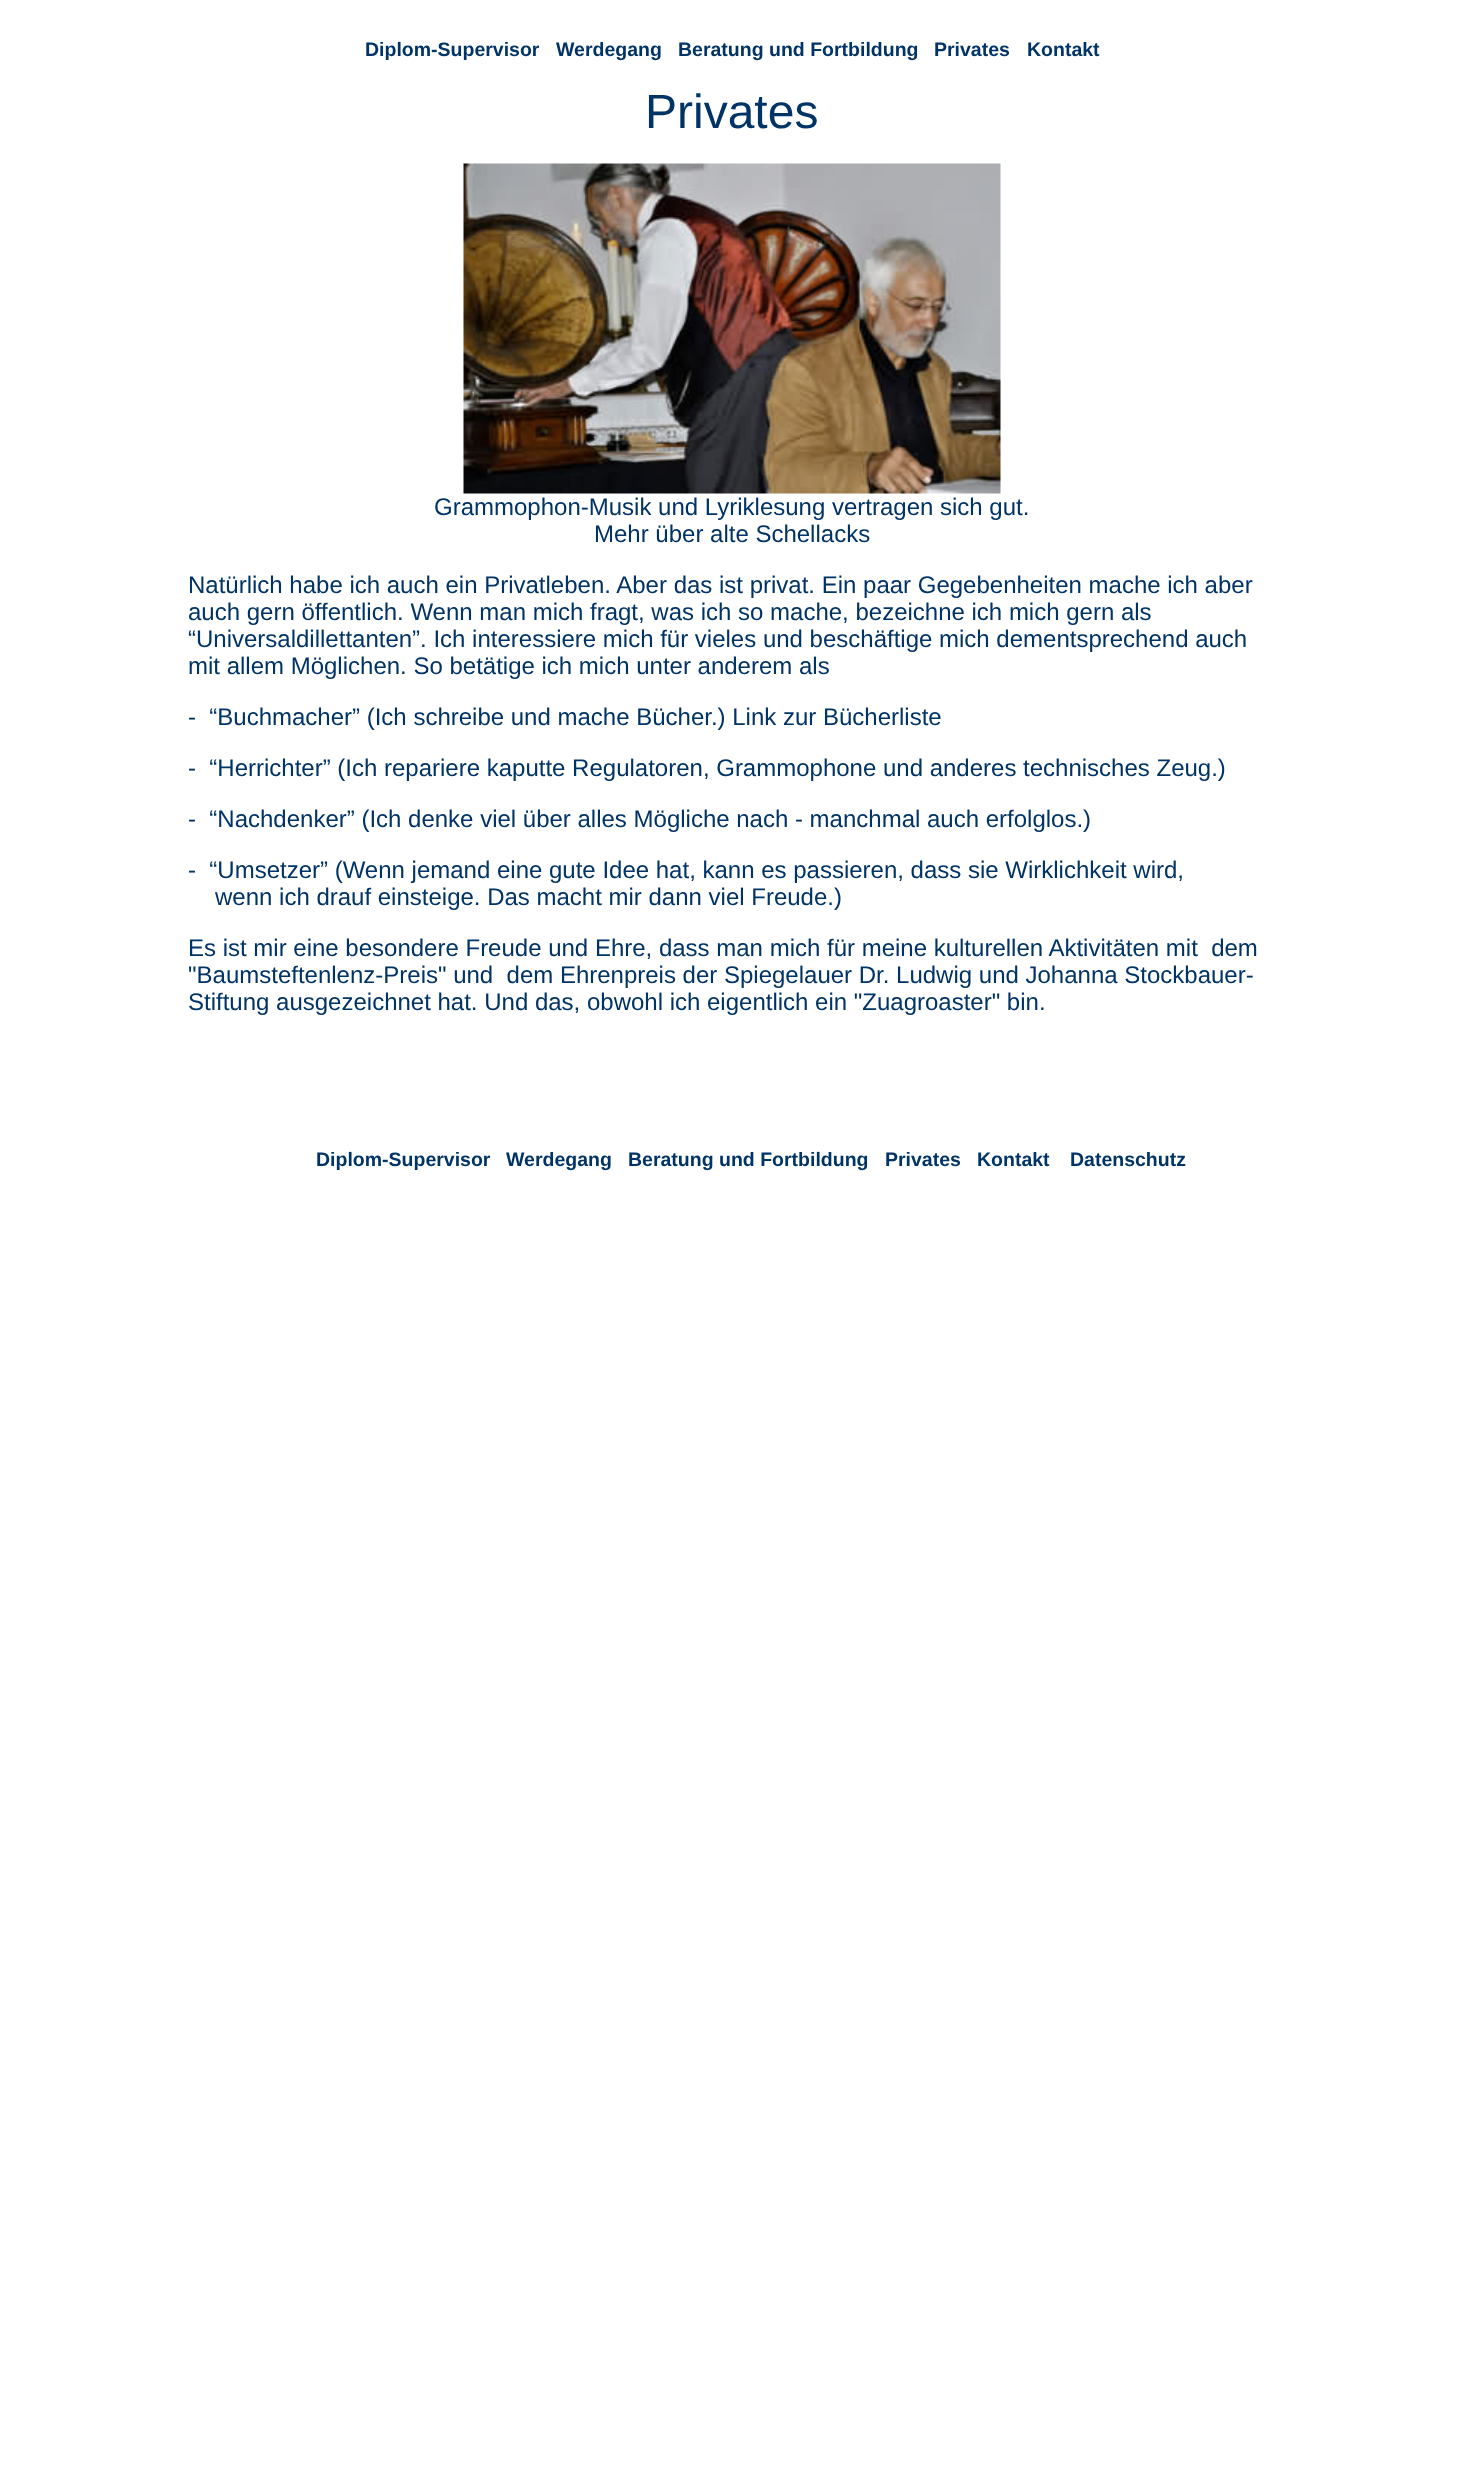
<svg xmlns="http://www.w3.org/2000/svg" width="1464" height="2473">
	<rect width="100%" height="100%" fill="#FFFFFF" />
	<g font-family="Liberation Sans" font-size="19.5" font-weight="700" fill="#003366">
		<text x="365" y="56">Diplom-Supervisor</text>
		<text x="556" y="56">Werdegang</text>
		<text x="678" y="56">Beratung und Fortbildung</text>
		<text x="934" y="56">Privates</text>
		<text x="1027" y="56">Kontakt</text>
	</g>
	<text x="645" y="128" font-family="Liberation Sans" font-size="48" fill="#003366">Privates</text>
	<image x="463" y="163" width="538" height="331" href="assets/img1.png" />
	<g font-family="Liberation Sans" font-size="24" fill="#003366">
		<text x="434" y="515">Grammophon-Musik und Lyriklesung vertragen sich gut.</text>
		<text x="594" y="542">Mehr über alte Schellacks</text>
		<text x="188" y="593">Natürlich habe ich auch ein Privatleben. Aber das ist privat. Ein paar Gegebenheiten mache ich aber</text>
		<text x="188" y="620">auch gern öffentlich. Wenn man mich fragt, was ich so mache, bezeichne ich mich gern als</text>
		<text x="188" y="647">“Universaldillettanten”. Ich interessiere mich für vieles und beschäftige mich dementsprechend auch</text>
		<text x="188" y="674">mit allem Möglichen. So betätige ich mich unter anderem als</text>
		<text x="188" y="725" xml:space="preserve">-  “Buchmacher” (Ich schreibe und mache Bücher.) Link zur Bücherliste</text>
		<text x="188" y="776" xml:space="preserve">-  “Herrichter” (Ich repariere kaputte Regulatoren, Grammophone und anderes technisches Zeug.)</text>
		<text x="188" y="827" xml:space="preserve">-  “Nachdenker” (Ich denke viel über alles Mögliche nach - manchmal auch erfolglos.)</text>
		<text x="188" y="878" xml:space="preserve">-  “Umsetzer” (Wenn jemand eine gute Idee hat, kann es passieren, dass sie Wirklichkeit wird,</text>
		<text x="215" y="905">wenn ich drauf einsteige. Das macht mir dann viel Freude.)</text>
		<text x="188" y="956" xml:space="preserve">Es ist mir eine besondere Freude und Ehre, dass man mich für meine kulturellen Aktivitäten mit  dem</text>
		<text x="188" y="983" xml:space="preserve">"Baumsteftenlenz-Preis" und  dem Ehrenpreis der Spiegelauer Dr. Ludwig und Johanna Stockbauer-</text>
		<text x="188" y="1010">Stiftung ausgezeichnet hat. Und das, obwohl ich eigentlich ein "Zuagroaster" bin.</text>
	</g>
	<g font-family="Liberation Sans" font-size="19.5" font-weight="700" fill="#003366">
		<text x="316" y="1166">Diplom-Supervisor</text>
		<text x="506" y="1166">Werdegang</text>
		<text x="628" y="1166">Beratung und Fortbildung</text>
		<text x="885" y="1166">Privates</text>
		<text x="977" y="1166">Kontakt</text>
		<text x="1070" y="1166">Datenschutz</text>
	</g>
</svg>
